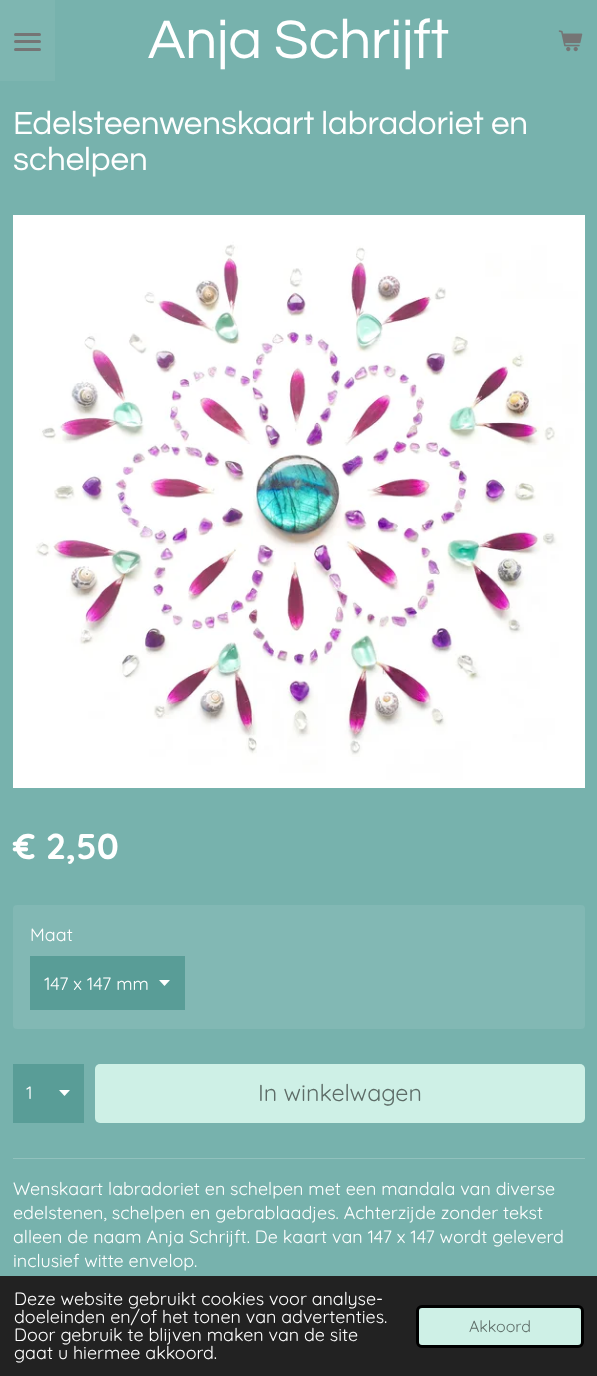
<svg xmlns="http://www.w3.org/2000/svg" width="597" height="1376">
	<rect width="100%" height="100%" fill="#77B2AD" />
	<rect x="0" y="0" width="55" height="81" fill="#7EB6B1" />
	<rect x="14" y="40" width="27" height="3" rx="1.5" fill="#757575" />
	<rect x="14" y="33" width="27" height="3" rx="1.5" fill="#757575" />
	<rect x="14" y="48" width="27" height="3" rx="1.5" fill="#757575" />
	<text x="148" y="58" font-family="Questrial" font-size="56.25" fill="#FFFFFF">Anja Schrijft</text>
	<image x="558" y="30" width="25" height="22" href="assets/img1.png" />
	<g font-family="Questrial" font-size="33.1" fill="#FFFFFF">
		<text x="13" y="134">Edelsteenwenskaart labradoriet en</text>
		<text x="13" y="170">schelpen</text>
	</g>
	<image x="13" y="215" width="572" height="573" href="assets/img2.png" />
	<text x="13" y="859" font-family="Quicksand" font-size="36" font-weight="700" fill="#FFFFFF">€ 2,50</text>
	<rect x="13" y="905" width="572" height="124" rx="4" fill="#82B8B4" />
	<text x="30" y="941" font-family="Quicksand" font-size="17.9" fill="#FFFFFF">Maat</text>
	<rect x="30" y="956" width="155" height="54" fill="#599D97" />
	<path d="M164.5 986L159 980H170Z" fill="#FFFFFF" />
	<text x="44" y="990" font-family="Quicksand" font-size="17.9" fill="#FFFFFF">147 x 147 mm</text>
	<rect x="13" y="1064" width="71" height="59" fill="#599D97" />
	<path d="M64.5 1096L59 1090H70Z" fill="#FFFFFF" />
	<text x="26" y="1099" font-family="Quicksand" font-size="17.9" fill="#FFFFFF">1</text>
	<rect x="95" y="1064" width="490" height="59" rx="5" fill="#CEF0E6" />
	<text x="258" y="1101" font-family="Quicksand" font-size="23.25" fill="#5D6C67">In winkelwagen</text>
	<rect x="13" y="1158" width="572" height="1" fill="#92C1BD" />
	<g font-family="Quicksand" font-size="17.9" fill="#FFFFFF">
		<text x="13" y="1195">Wenskaart labradoriet en schelpen met een mandala van diverse</text>
		<text x="13" y="1219">edelstenen, schelpen en gebrablaadjes. Achterzijde zonder tekst</text>
		<text x="13" y="1243">alleen de naam Anja Schrijft. De kaart van 147 x 147 wordt geleverd</text>
		<text x="13" y="1267">inclusief witte envelop.</text>
	</g>
	<rect x="0" y="1276" width="597" height="100" fill="#222222" />
	<g font-family="Quicksand" font-size="17.9" fill="#FFFFFF">
		<text x="14" y="1305">Deze website gebruikt cookies voor analyse-</text>
		<text x="14" y="1323">doeleinden en/of het tonen van advertenties.</text>
		<text x="14" y="1341">Door gebruik te blijven maken van de site</text>
		<text x="14" y="1359">gaat u hiermee akkoord.</text>
	</g>
	<rect x="417.5" y="1306.5" width="165" height="40" rx="4.5" fill="#CEF0E6" stroke="#000000" stroke-width="3" />
	<text x="469" y="1332" font-family="Quicksand" font-size="16" fill="#5D6C67">Akkoord</text>
</svg>
